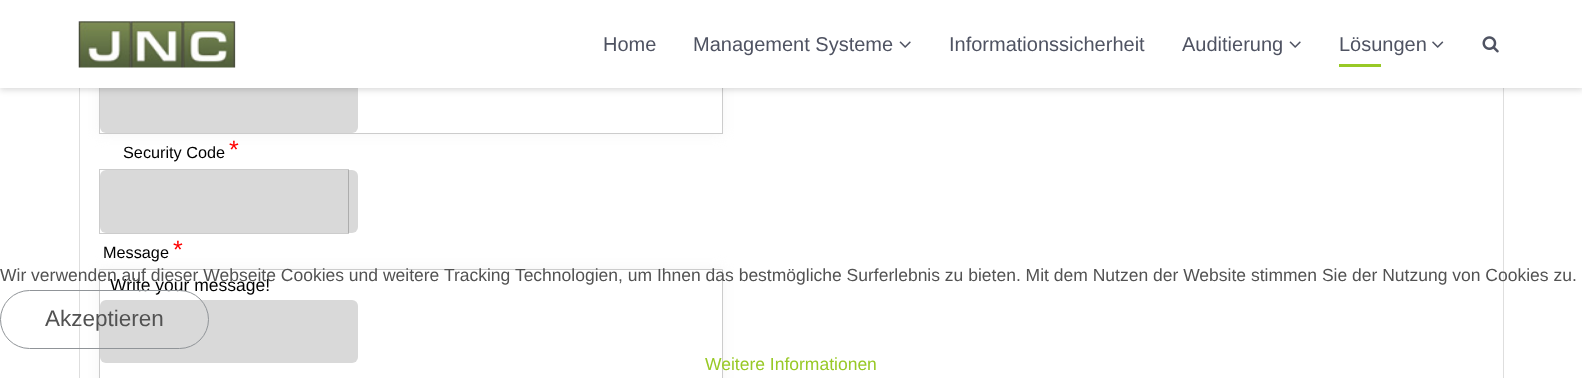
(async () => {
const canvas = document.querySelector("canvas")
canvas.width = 1582
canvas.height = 378
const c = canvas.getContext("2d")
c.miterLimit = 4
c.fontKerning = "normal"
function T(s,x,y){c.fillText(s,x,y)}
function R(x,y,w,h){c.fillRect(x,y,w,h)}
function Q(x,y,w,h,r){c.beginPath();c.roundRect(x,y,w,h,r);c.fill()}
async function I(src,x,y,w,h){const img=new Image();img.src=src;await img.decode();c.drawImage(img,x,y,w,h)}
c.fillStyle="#fff"
R(0,0,1582,378)
c.strokeStyle="#dedede"
c.strokeRect(79.5,-.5,1424,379)
c.fillStyle="#f5f5f5"
c.filter="blur(6px)"
c.beginPath()
c.rect(99,39,624,95)
c.fill()
c.filter="none"
c.fillStyle="#fff"
R(100,88,622,45)
c.strokeStyle="#ccc"
c.strokeRect(99.5,39.5,623,94)
c.fillStyle="#d9d9d9"
Q(100,70,258,63,6)
c.fillStyle="#00000026"
c.filter="blur(3px)"
c.beginPath()
c.rect(0,3,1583,87)
c.fill()
c.filter="none"
c.fillStyle="#fff"
R(0,0,1582,88)
await I("1.png",78,21,158,47)
c.font="20px Liberation Sans"
c.fillStyle="#4f5362"
T("Home",603,51)
T("Management Systeme",693,51)
await I("2.png",899,41,12,7)
T("Informationssicherheit",949,51)
T("Auditierung",1182,51)
await I("2.png",1289,41,12,7)
T("Lösungen",1339,51)
await I("3.png",1432,41,12,7)
c.fillStyle="#98c926"
R(1339,64,42,3)
await I("4.png",1482,36,17,17)
c.font="25px Liberation Sans"
c.fillStyle="#f00"
T("*",229,158)
c.font="16.25px Liberation Sans"
c.fillStyle="#000"
T("Security Code",123,158)
c.strokeRect(99.5,169.5,249,64)
c.fillStyle="#00000026"
Q(100,170,258,63,6)
c.font="25px Liberation Sans"
c.fillStyle="#f00"
T("*",173,258)
c.fillStyle="#f5f5f5"
c.filter="blur(6px)"
c.beginPath()
c.rect(99,269,624,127)
c.fill()
c.filter="none"
c.font="16.25px Liberation Sans"
c.fillStyle="#000"
T("Message",103,258)
c.fillStyle="#fff"
c.beginPath()
c.rect(99.5,269.5,623,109)
c.fill()
c.stroke()
c.font="17.5px Liberation Sans"
c.fillStyle="#000"
T("Write your message!",110,291)
c.fillStyle="#d9d9d9"
Q(100,300,258,63,6)
c.fillStyle="#525252"
T("Wir verwenden auf dieser Webseite Cookies und weitere Tracking Technologien, um Ihnen das bestmögliche Surferlebnis zu bieten. Mit dem Nutzen der Website stimmen Sie der Nutzung von Cookies zu.",0,281)
c.beginPath()
c.roundRect(.5,290.5,208,58,29)
c.strokeStyle="#909498"
c.stroke()
c.font="22.5px Liberation Sans"
T("Akzeptieren",45,326)
c.font="17.5px Liberation Sans"
c.fillStyle="#98c926"
T("Weitere Informationen",705,370)
})()
